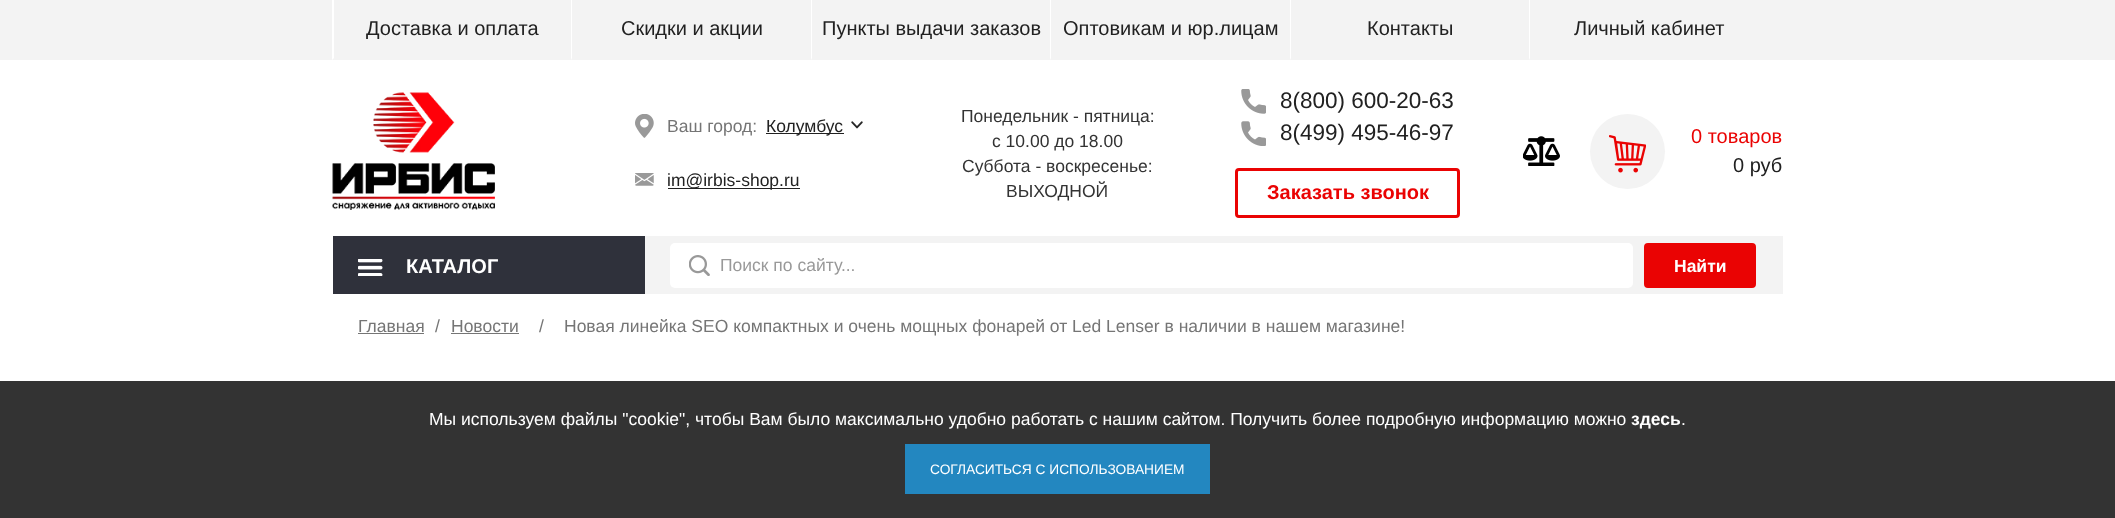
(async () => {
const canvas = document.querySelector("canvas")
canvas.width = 2115
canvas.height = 518
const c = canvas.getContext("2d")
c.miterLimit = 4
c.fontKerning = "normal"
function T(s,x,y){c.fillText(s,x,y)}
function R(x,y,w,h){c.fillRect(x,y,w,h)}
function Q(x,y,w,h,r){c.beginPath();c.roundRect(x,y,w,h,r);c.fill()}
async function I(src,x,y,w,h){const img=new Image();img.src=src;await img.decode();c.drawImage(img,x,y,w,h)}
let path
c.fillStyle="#fff"
R(0,0,2115,518)
c.fillStyle="#f3f3f3"
R(0,0,2115,60)
c.fillStyle="#fff"
path = new Path2D("M332 60v-60h2v58z")
c.fill(path)
c.font="20px Liberation Sans"
c.fillStyle="#212121"
T("Доставка и оплата",366,35)
c.fillStyle="#fff"
path = new Path2D("M571 60v-60h1v58z")
c.fill(path)
c.fillStyle="#212121"
T("Скидки и акции",621,35)
c.fillStyle="#fff"
path = new Path2D("M811 60v-60h1v58z")
c.fill(path)
c.fillStyle="#212121"
T("Пункты выдачи заказов",822,35)
c.fillStyle="#fff"
path = new Path2D("M1050 60v-60h1v58z")
c.fill(path)
c.fillStyle="#212121"
T("Оптовикам и юр.лицам",1063,35)
c.fillStyle="#fff"
path = new Path2D("M1290 60v-60h1v58z")
c.fill(path)
c.fillStyle="#212121"
T("Контакты",1367,35)
c.fillStyle="#fff"
path = new Path2D("M1529 60v-60h1v58z")
c.fill(path)
c.fillStyle="#212121"
T("Личный кабинет",1574,35)
await I("1.png",332,92,163,118)
await I("2.png",635,114,19,24)
c.font="17.5px Liberation Sans"
c.fillStyle="#757575"
T("Ваш город:",667,132)
c.fillStyle="#212121"
R(766,133,78,1)
T("Колумбус",766,132)
await I("3.png",851,121,12,8)
await I("4.png",635,173,19,13)
R(668,188,132,1)
T("im@irbis-shop.ru",667,186)
c.fillStyle="#333"
T("Понедельник - пятница:",961,122)
T("с 10.00 до 18.00",992,147)
T("Суббота - воскресенье:",962,172)
T("ВЫХОДНОЙ",1006,197)
await I("5.png",1241,89,25,25)
c.font="22.5px Liberation Sans"
c.fillStyle="#212121"
T("8(800) 600-20-63",1280,108)
await I("6.png",1241,121,25,25)
T("8(499) 495-46-97",1280,140)
c.beginPath()
c.roundRect(1236.5,169.5,222,47,2.5)
c.strokeStyle="#ea0303"
c.lineWidth=3
c.stroke()
c.font="bold 20px Liberation Sans"
c.fillStyle="#ea0303"
T("Заказать звонок",1267,199)
await I("7.png",1523,136,37,30)
c.fillStyle="#f3f3f3"
c.beginPath()
c.arc(1627.5,151.5,37.5,0,7)
c.fill()
await I("8.png",1609,135,37,38)
c.font="20px Liberation Sans"
c.fillStyle="#ea0303"
T("0 товаров",1691,143)
c.fillStyle="#212121"
T("0 руб",1733,172)
c.fillStyle="#2f313b"
R(333,236,312,58)
await I("9.png",358,259,25,17)
c.font="bold 20px Liberation Sans"
c.fillStyle="#fff"
T("КАТАЛОГ",406,273)
c.fillStyle="#f3f3f3"
R(645,236,1138,58)
c.fillStyle="#fff"
Q(670,243,963,45,5)
await I("10.png",689,255,21,21)
c.font="17.5px Liberation Sans"
c.fillStyle="#999"
T("Поиск по сайту...",720,271)
c.fillStyle="#ea0303"
c.beginPath()
c.roundRect(1645.5,244.5,109,42,2.5)
c.fill()
c.stroke()
c.font="bold 17.5px Liberation Sans"
c.fillStyle="#fff"
T("Найти",1674,272)
c.font="17.5px Liberation Sans"
c.fillStyle="#757575"
T("Главная",358,332)
R(358,333,66,1)
T("/",435,332)
T("Новости",451,332)
R(451,333,68,1)
T("/",539,332)
T("Новая линейка SEO компактных и очень мощных фонарей от Led Lenser в наличии в нашем магазине!",564,332)
c.fillStyle="#333"
R(0,381,2115,137)
c.fillStyle="#fff"
T("Мы используем файлы \"cookie\", чтобы Вам было максимально удобно работать с нашим сайтом. Получить более подробную информацию можно",429,425)
c.font="bold 17.5px Liberation Sans"
T("здесь",1631,425)
c.font="17.5px Liberation Sans"
T(".",1681,425)
c.fillStyle="#2387c0"
R(905,444,305,50)
c.font="13.75px Liberation Sans"
c.fillStyle="#fff"
T("СОГЛАСИТЬСЯ С ИСПОЛЬЗОВАНИЕМ",930,474)
})()
